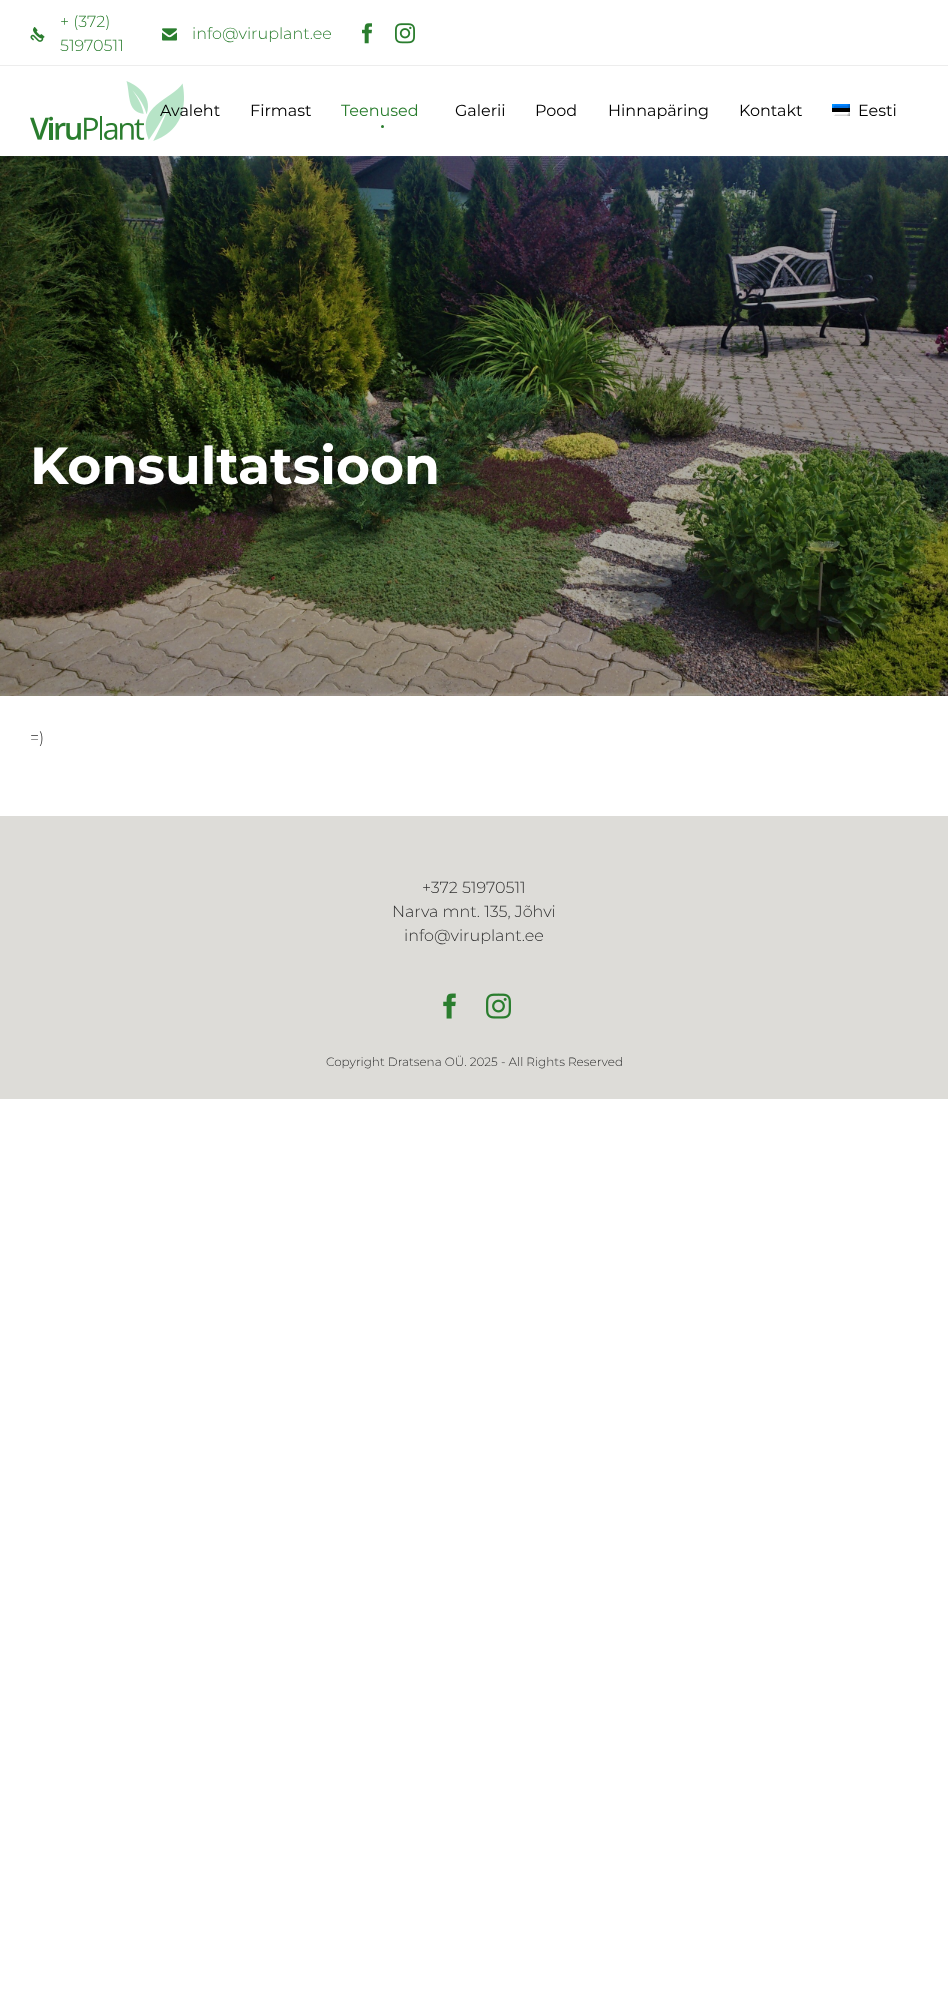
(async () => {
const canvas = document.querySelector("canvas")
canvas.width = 948
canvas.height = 1996
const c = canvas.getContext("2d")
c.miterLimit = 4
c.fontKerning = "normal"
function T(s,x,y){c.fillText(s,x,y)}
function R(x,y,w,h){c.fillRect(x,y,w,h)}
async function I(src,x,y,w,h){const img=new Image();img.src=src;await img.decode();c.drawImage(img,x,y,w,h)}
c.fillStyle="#fff"
R(0,0,948,1996)
c.fillStyle="#ededed"
R(0,65,948,1)
await I("1.png",30,27,15,15)
c.font="300 16px Montserrat"
c.fillStyle="#2a7d2e"
T("+ (372)",60,27)
T("51970511",60,51)
await I("2.png",162,28,15,13)
T("info@viruplant.ee",192,39)
await I("3.png",362,23,10,21)
await I("4.png",395,23,20,21)
await I("5.png",30,81,154,60)
c.font="16px Montserrat"
c.fillStyle="#000"
T("Avaleht",160,116)
T("Firmast",250,116)
c.fillStyle="#2a7d2e"
T("Teenused",341,116)
c.beginPath()
c.arc(382.5,126.5,1.5,0,7)
c.fill()
c.fillStyle="#000"
T("Galerii",455,116)
T("Pood",535,116)
T("Hinnapäring",608,116)
T("Kontakt",739,116)
await I("6.png",832,104,18,12)
T("Eesti",858,116)
await I("7.png",0,156,948,540)
c.font="bold 52px Montserrat"
c.fillStyle="#fff"
T("Konsultatsioon",30,484)
c.font="300 16px Montserrat"
c.fillStyle="#2f2f2f"
T("=)",30,743)
c.fillStyle="#dddcd8"
R(0,816,948,283)
c.fillStyle="#2f2f2f"
T("+372 51970511",422,893)
T("Narva mnt. 135, Jõhvi",392,917)
T("info@viruplant.ee",404,941)
await I("8.png",443,993,13,26)
await I("9.png",486,993,25,26)
c.font="300 12px Montserrat"
T("Copyright Dratsena OÜ. 2025 - All Rights Reserved",326,1066)
})()
